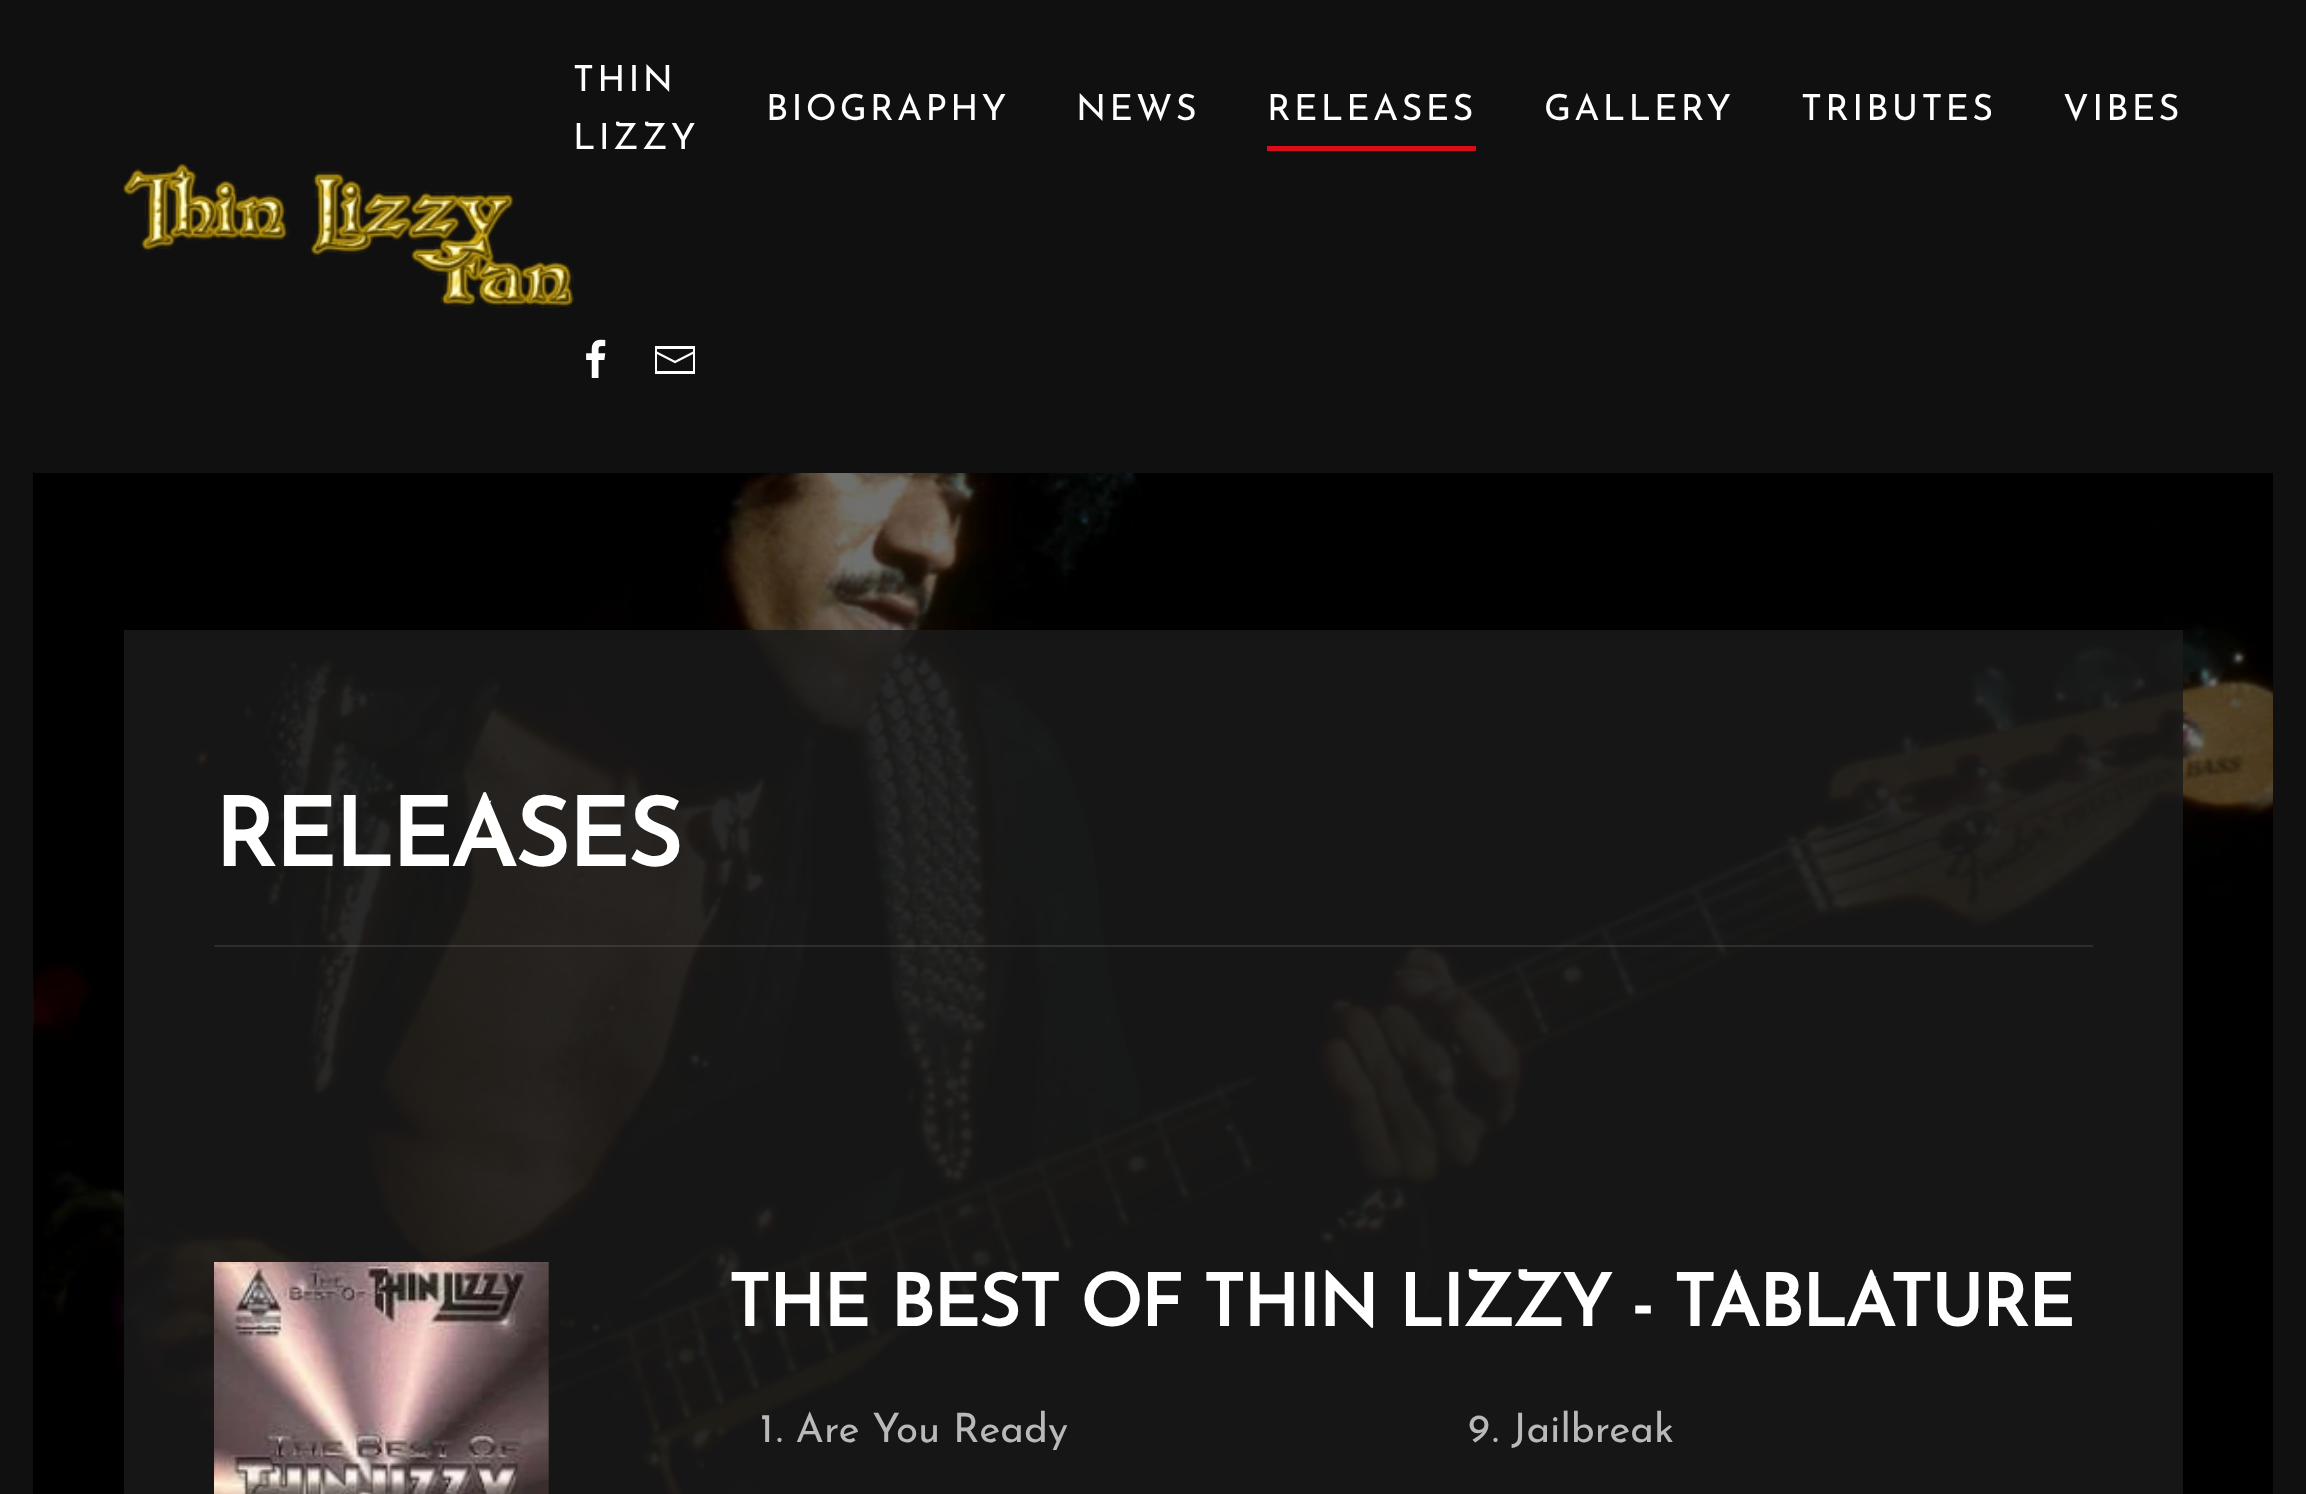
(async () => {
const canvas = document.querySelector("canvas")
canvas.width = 2306
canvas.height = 1494
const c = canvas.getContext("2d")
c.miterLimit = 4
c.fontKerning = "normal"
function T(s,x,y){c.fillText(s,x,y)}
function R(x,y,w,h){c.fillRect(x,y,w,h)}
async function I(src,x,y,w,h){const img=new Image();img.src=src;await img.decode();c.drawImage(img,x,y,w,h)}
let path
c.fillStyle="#101010"
R(0,0,2306,1494)
await I("3.png",33,472,2240,1022)
R(34,472,2239,1)
c.letterSpacing="3.25px"
c.font="100 36px Josefin Sans"
c.fillStyle="#fff"
T("THIN",573,91)
T("LIZZY",573,149)
T("BIOGRAPHY",766,120)
T("NEWS",1076,120)
T("RELEASES",1267,120)
c.fillStyle="#d90d18"
R(1267,146,209,5)
c.fillStyle="#fff"
T("GALLERY",1544,120)
T("TRIBUTES",1801,120)
T("VIBES",2063,120)
await I("1.png",586,339,20,39)
path = new Path2D("M655.5 352l19.5 10l19.5-10")
c.strokeStyle="#fff"
c.lineWidth=2.2
c.stroke(path)
path = new Path2D("M655 346v28h40v-28zm38 25h-36v-22h36z")
c.fill(path)
await I("2.png",123,164,451,144)
c.fillStyle="#1a1a1ad6"
R(124,630,2059,475)
c.letterSpacing="-2px"
c.font="bold 94.5px Josefin Sans"
c.fillStyle="#fff"
T("RELEASES",214,866)
c.fillStyle="#ffffff1a"
R(214,945,1879,2)
c.fillStyle="#1a1a1ad6"
R(124,1105,515,389)
await I("4.png",214,1262,335,232)
R(639,1105,1544,389)
c.letterSpacing="-1.45px"
c.font="bold 72px Josefin Sans"
c.fillStyle="#fff"
T("THE BEST OF THIN LIZZY - TABLATURE",728,1326)
c.letterSpacing="0px"
c.font="100 40.5px Josefin Sans"
c.fillStyle="#b9b9b9"
T("1",760,1442)
T(". Are You Ready",776,1442)
T("9",1468,1442)
T(". Jailbreak",1492,1442)
})()
